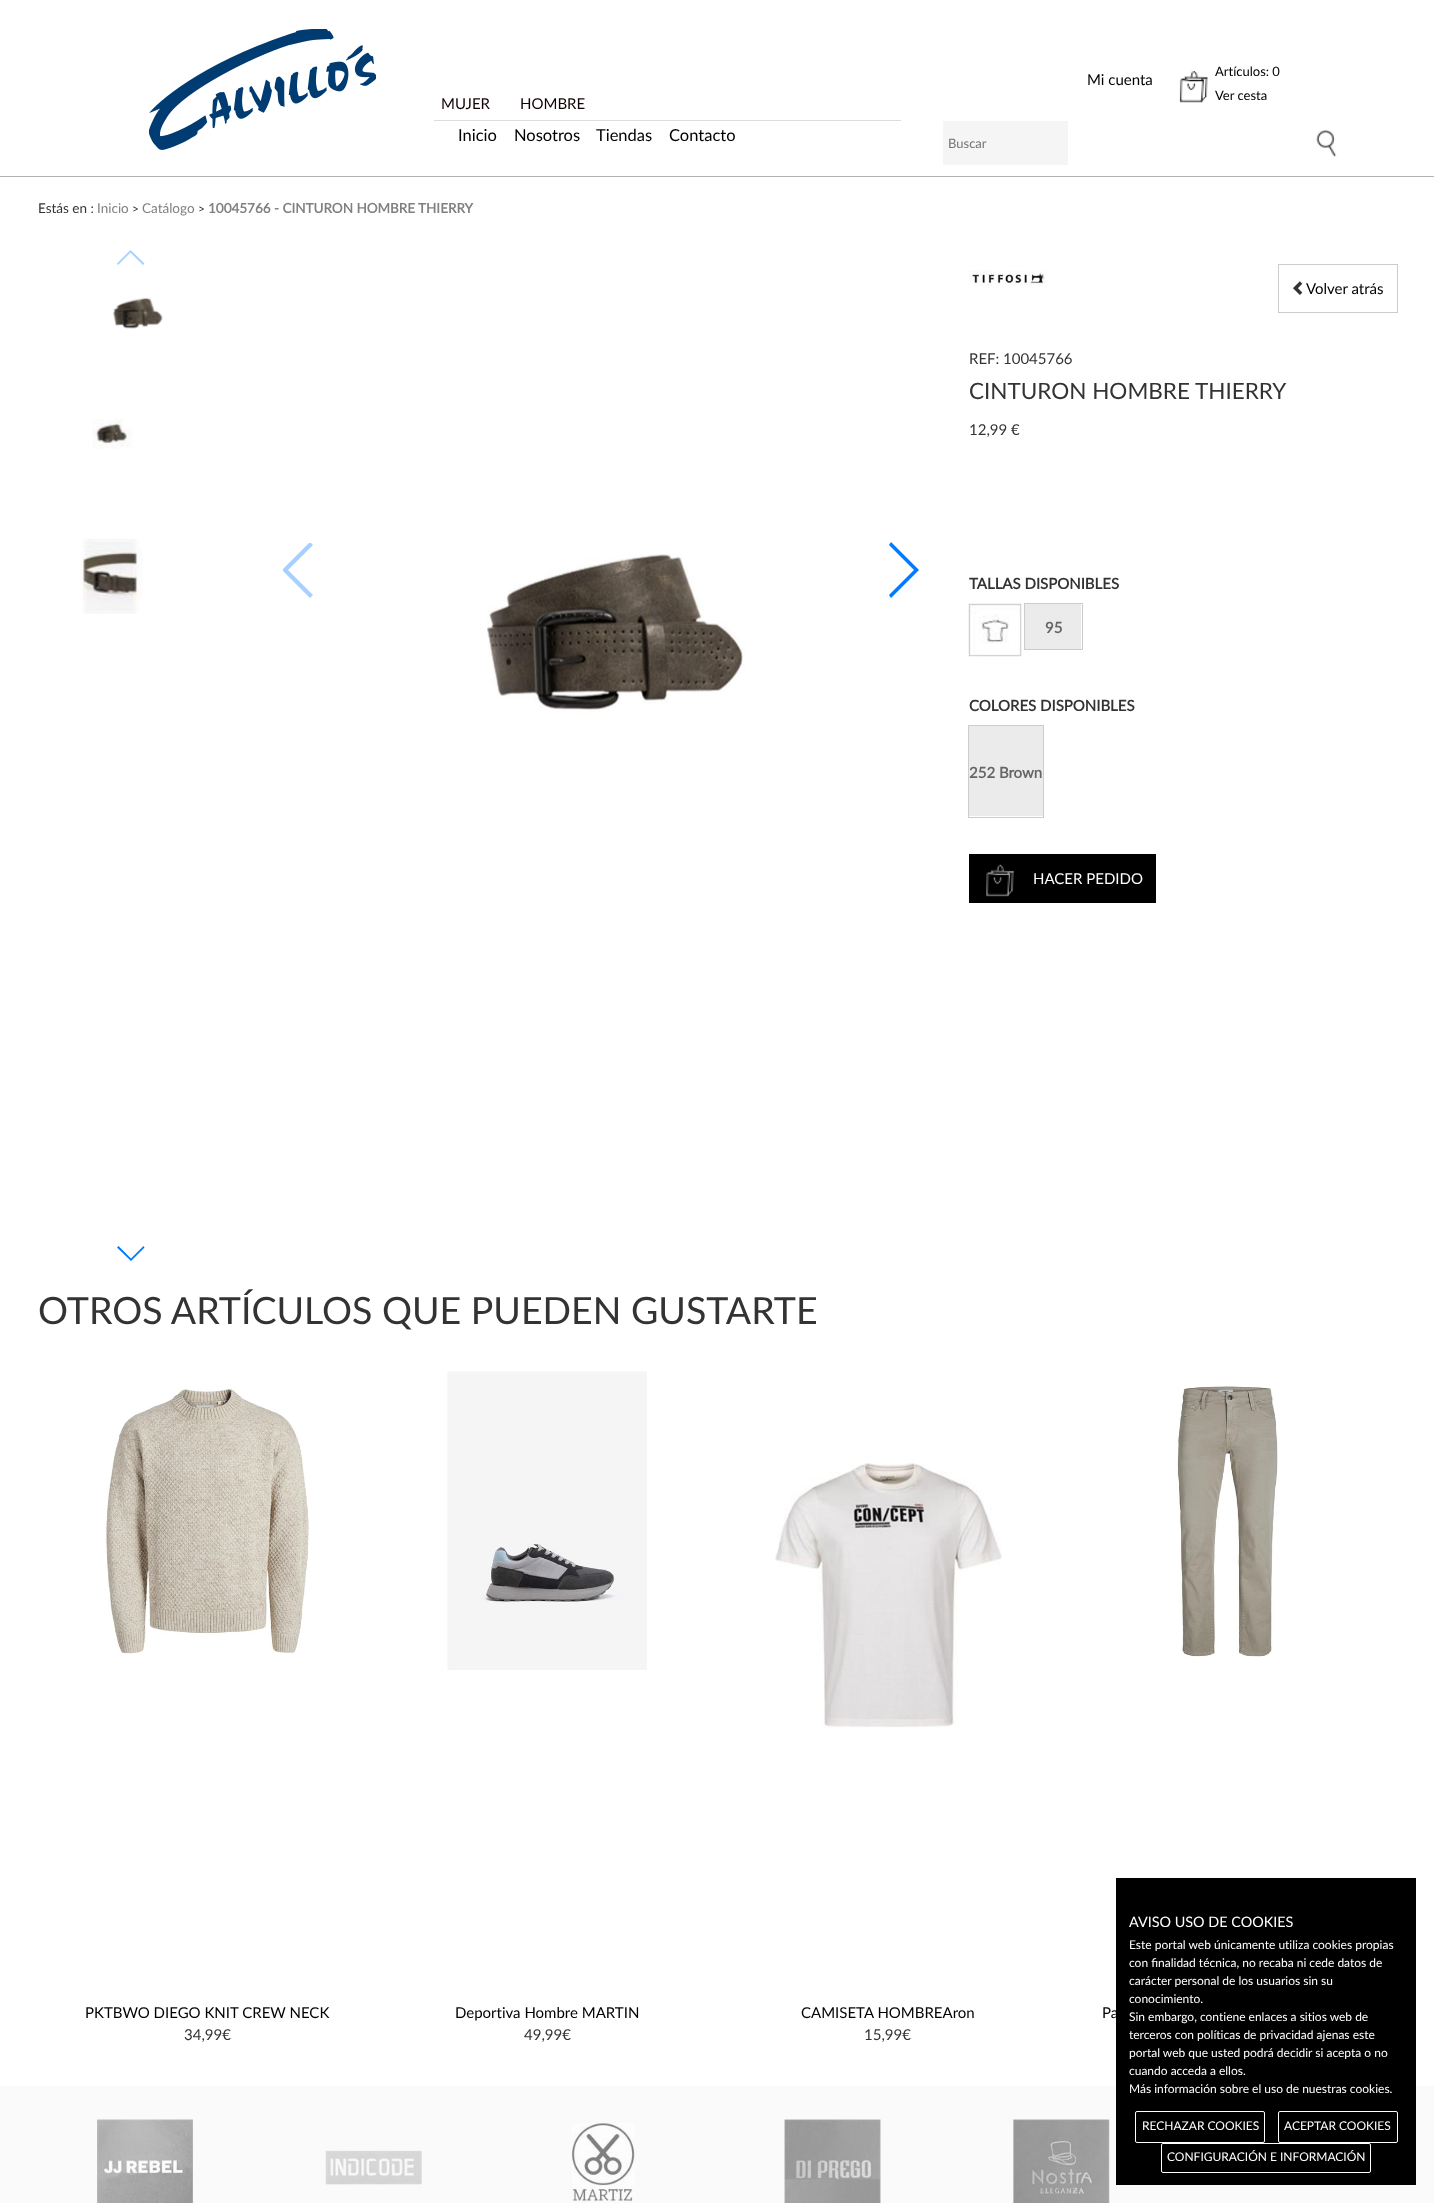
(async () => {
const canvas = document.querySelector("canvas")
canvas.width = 1434
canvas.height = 2203
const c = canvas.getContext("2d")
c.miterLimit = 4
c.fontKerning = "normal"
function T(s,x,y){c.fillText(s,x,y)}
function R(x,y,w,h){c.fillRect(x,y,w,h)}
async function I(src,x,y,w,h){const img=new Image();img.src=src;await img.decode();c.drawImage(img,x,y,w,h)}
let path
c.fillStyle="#fff"
R(0,0,1434,2203)
c.fillStyle="#b3b3b3"
R(0,176,1434,1)
await I("1.png",149,29,227,121)
c.font="15px Lato"
c.fillStyle="#000"
T("Mi cuenta",1087,85)
await I("2.png",1179,71,29,32)
c.font="13px Lato"
T("Artículos: 0",1215,76)
T("Ver cesta",1215,100)
c.fillStyle="#ddd"
R(434,120,467,1)
c.font="15px Lato"
c.fillStyle="#120203"
T("MUJER",441,109)
T("HOMBRE",520,109)
c.font="16.5px Lato"
c.fillStyle="#000"
T("Inicio",458,141)
T("Nosotros",514,141)
T("Tiendas",596,141)
T("Contacto",669,141)
c.fillStyle="#f5f5f5"
R(943,121,125,44)
c.font="13px Lato"
c.fillStyle="#757575"
T("Buscar",948,148)
await I("3.png",1316,130,21,27)
c.font="13.5px Lato"
c.fillStyle="#333"
T("Estás en :",38,213)
c.fillStyle="#808080"
T("Inicio",97,213)
c.font="12px Lato"
c.fillStyle="#333"
T(">",132,213)
c.font="13.5px Lato"
c.fillStyle="#808080"
T("Catálogo",142,213)
c.font="12px Lato"
c.fillStyle="#333"
T(">",198,213)
c.font="bold 13.5px Lato"
c.fillStyle="#808080"
T("10045766 - CINTURON HOMBRE THIERRY",208,213)
c.fillStyle="#a6d0ff"
path = new Path2D("M130.5 250l14 13.5l-1.5 1.5l-12.5-12.5l-12.5 12.5l-1-1.5z")
c.fill(path)
await I("4.png",113,297,50,32)
await I("5.png",92,419,41,30)
await I("6.png",80,539,63,75)
c.fillStyle="#007aff"
path = new Path2D("M131 1261l-14-13.5l1.5-1.5l12.5 12.5l12.5-12.5l1 1.5z")
c.fill(path)
await I("7.png",969,270,78,16)
c.strokeStyle="#ccc"
c.strokeRect(1278.5,264.5,119,48)
await I("8.png",1293,281,10,14)
c.font="15px Lato"
c.fillStyle="#000"
T("Volver atrás",1306,294)
c.fillStyle="#333"
T("REF: 10045766",969,364)
c.font="22.5px Lato"
T("CINTURON HOMBRE THIERRY",969,399)
c.font="15px Lato"
T("12,99 €",969,435)
c.save()
c.beginPath()
c.rect(283,543,33,55)
c.clip()
c.fillStyle="#a6d0ff"
path = new Path2D("M282 570l28-28l3 3l-25 25l25 25l-3 3z")
c.fill(path)
c.restore()
await I("9.png",487,554,258,159)
c.fillStyle="#007aff"
path = new Path2D("M919 570l-28 28l-2-3l25-25l-25-25l2-3z")
c.fill(path)
c.font="bold 15px Lato"
c.fillStyle="#333"
T("TALLAS DISPONIBLES",969,589)
await I("10.png",968,603,54,54)
c.fillStyle="#ebebeb"
R(1025,604,56,45)
c.strokeRect(1024.5,603.5,58,46)
c.fillStyle="#666"
T("95",1045,633)
c.fillStyle="#333"
T("COLORES DISPONIBLES",969,711)
c.fillStyle="#ebebeb"
R(969,726,74,90)
c.strokeRect(968.5,725.5,75,92)
c.fillStyle="#666"
T("252 Brown",969,778)
c.fillStyle="#000"
R(969,854,187,49)
await I("11.png",986,864,28,33)
c.font="15px Lato"
c.fillStyle="#fff"
T("HACER PEDIDO",1033,884)
c.font="37.5px Lato"
c.fillStyle="#333"
T("OTROS ARTÍCULOS QUE PUEDEN GUSTARTE",38,1324)
await I("12.png",105,1388,204,266)
c.font="15px Lato"
c.fillStyle="#000"
T("PKTBWO DIEGO KNIT CREW NECK",85,2018)
c.fillStyle="#333"
T("34,99€",184,2040)
await I("13.png",447,1371,200,299)
c.fillStyle="#000"
T("Deportiva Hombre MARTIN",455,2018)
c.fillStyle="#333"
T("49,99€",524,2040)
await I("14.png",775,1463,227,266)
c.fillStyle="#000"
T("CAMISETA HOMBREAron",801,2018)
c.fillStyle="#333"
T("15,99€",864,2040)
await I("15.png",1176,1386,102,271)
c.fillStyle="#000"
T("Pa",1102,2018)
c.fillStyle="#fafafa"
R(0,2086,1434,117)
await I("16.png",97,2119,96,84)
await I("17.png",325,2150,97,35)
await I("18.png",572,2123,63,79)
await I("19.png",784,2119,97,84)
await I("20.png",1013,2119,97,84)
c.fillStyle="#000"
R(1116,1878,300,307)
c.font="14.4px Lato"
c.fillStyle="#fff"
T("AVISO USO DE COOKIES",1129,1927)
c.font="12px Lato"
T("Este portal web únicamente utiliza cookies propias",1129,1949)
T("con finalidad técnica, no recaba ni cede datos de",1129,1967)
T("carácter personal de los usuarios sin su",1129,1985)
T("conocimiento.",1129,2003)
T("Sin embargo, contiene enlaces a sitios web de",1129,2021)
T("terceros con políticas de privacidad ajenas este",1129,2039)
T("portal web que usted podrá decidir si acepta o no",1129,2057)
T("cuando acceda a ellos.",1129,2075)
T("Más información sobre el uso de nuestras cookies.",1129,2093)
c.beginPath()
c.roundRect(1135.5,2111.5,129,31,1.5)
c.strokeStyle="#fff"
c.stroke()
T("RECHAZAR COOKIES",1142,2130)
c.beginPath()
c.roundRect(1278.5,2111.5,119,31,1.5)
c.stroke()
T("ACEPTAR COOKIES",1284,2130)
c.beginPath()
c.roundRect(1161.5,2143.5,209,29,1.5)
c.stroke()
T("CONFIGURACIÓN E INFORMACIÓN",1167,2161)
})()
